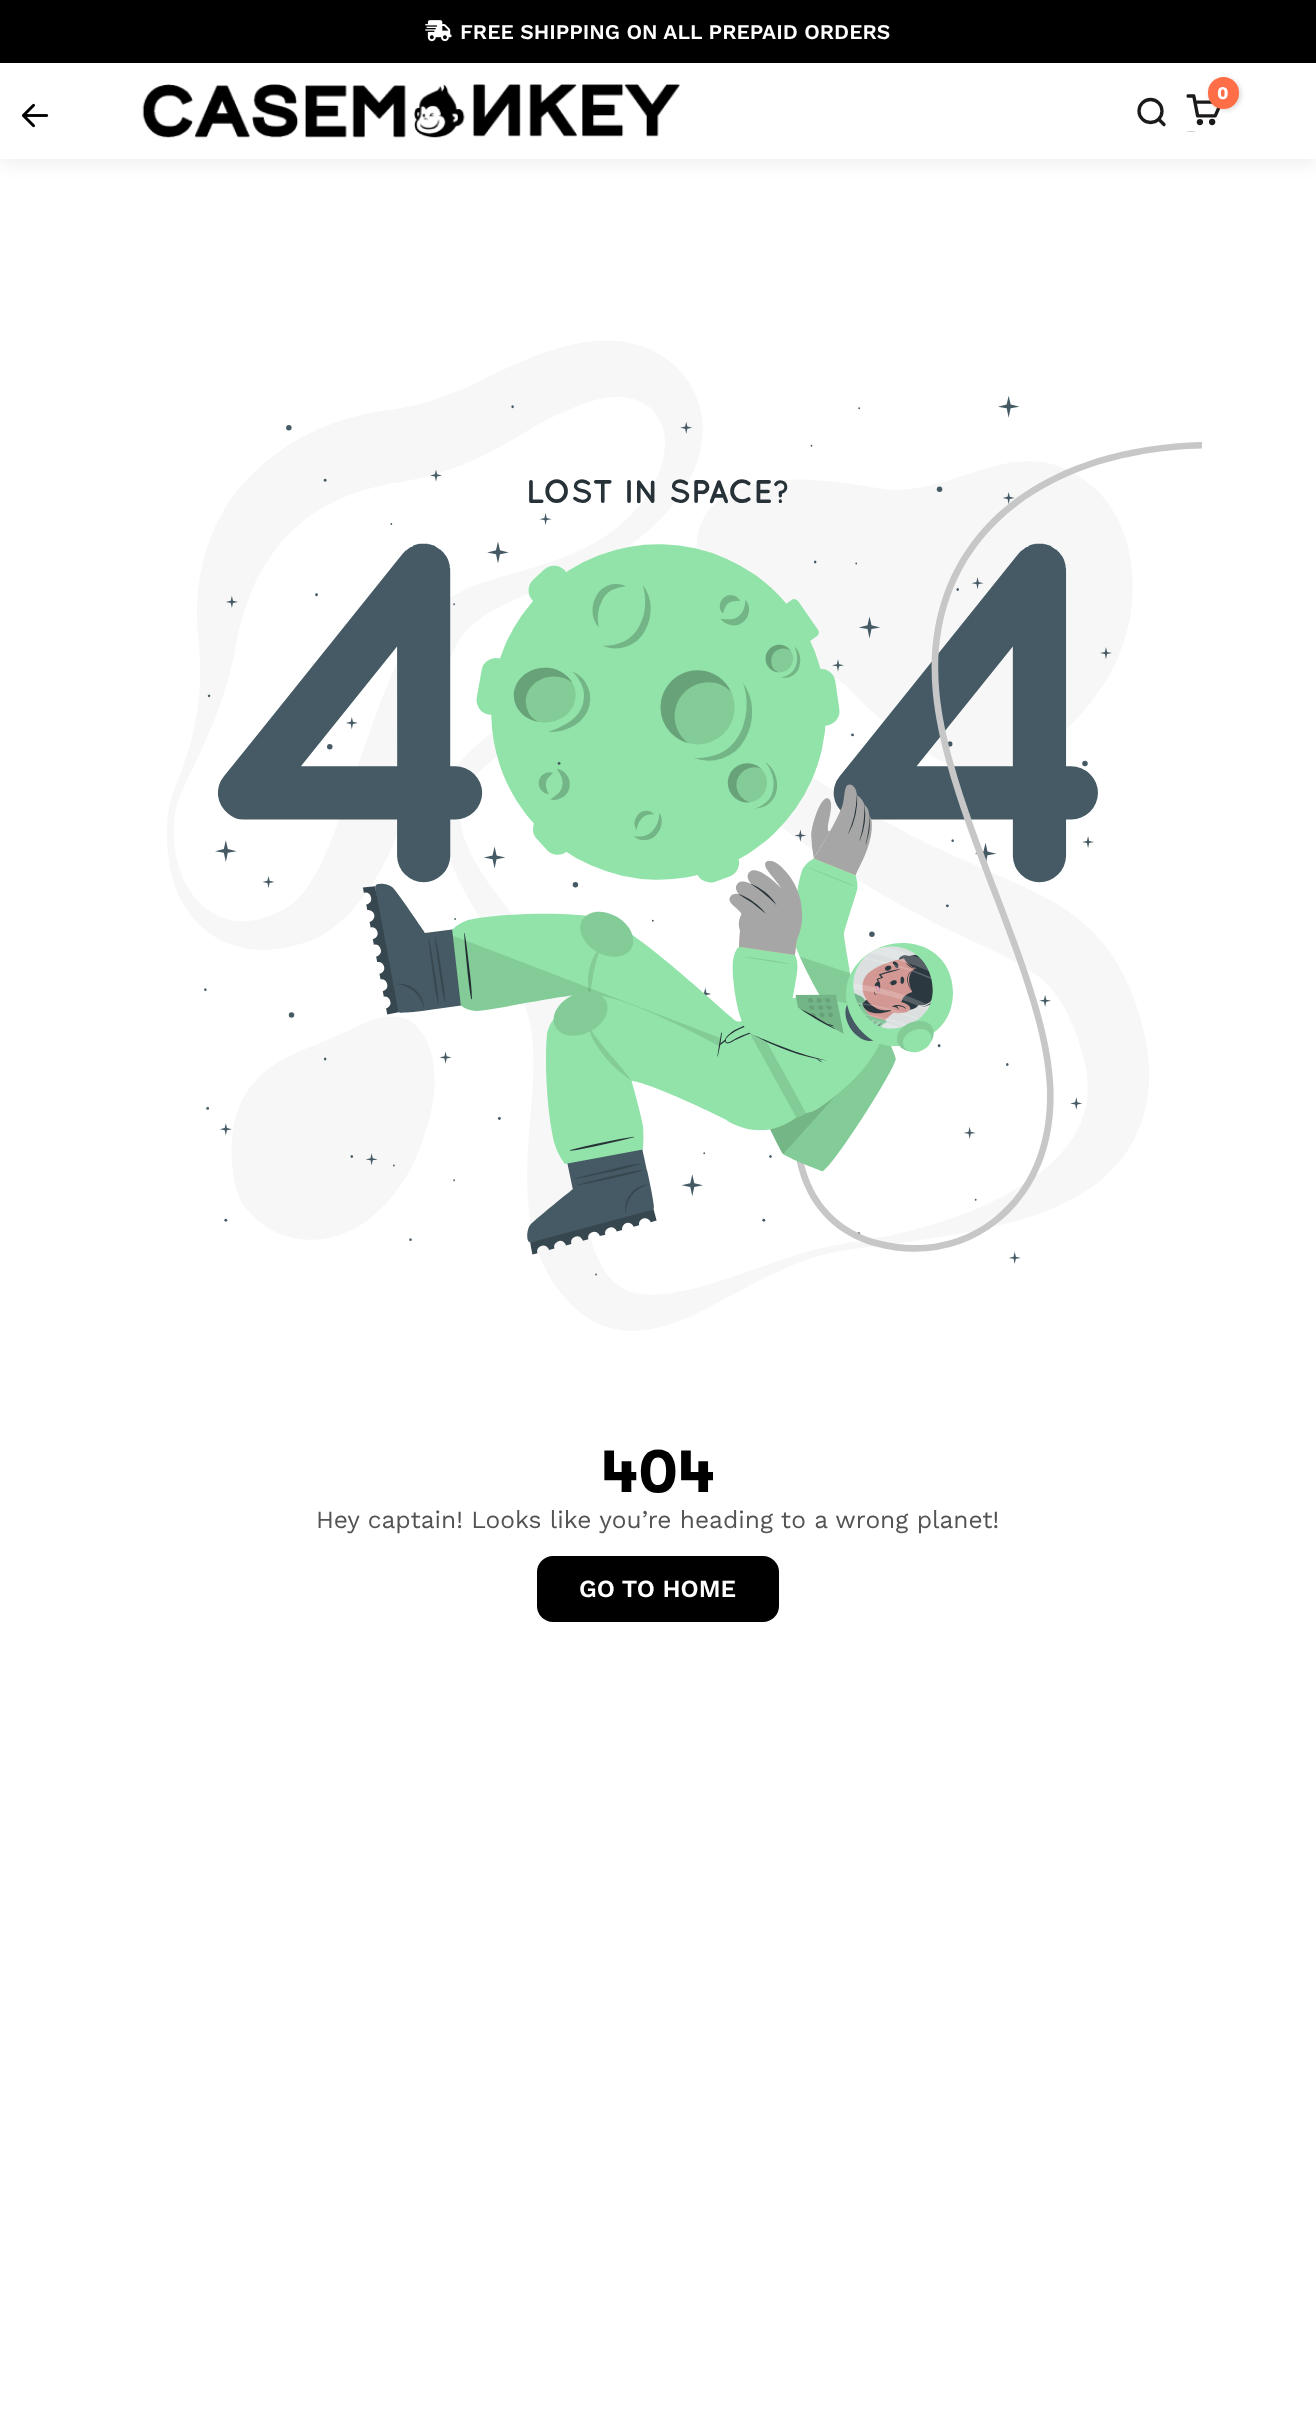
(async () => {
const canvas = document.querySelector("canvas")
canvas.width = 1316
canvas.height = 2412
const c = canvas.getContext("2d")
c.miterLimit = 4
c.fontKerning = "normal"
function T(s,x,y){c.fillText(s,x,y)}
function R(x,y,w,h){c.fillRect(x,y,w,h)}
function Q(x,y,w,h,r){c.beginPath();c.roundRect(x,y,w,h,r);c.fill()}
async function I(src,x,y,w,h){const img=new Image();img.src=src;await img.decode();c.drawImage(img,x,y,w,h)}
let path
c.fillStyle="#fff"
R(0,0,1316,2412)
c.fillStyle="#000"
R(0,0,1316,63)
await I("1.png",425,20,27,22)
c.font="600 21px Work Sans"
c.fillStyle="#fff"
T("FREE SHIPPING ON ALL PREPAID ORDERS",460,39)
c.save()
path = new Path2D("M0 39h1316v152h-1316zm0 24h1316v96h-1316z")
c.clip(path,"evenodd")
c.fillStyle="#00000012"
c.filter="blur(9px)"
c.beginPath()
c.rect(0,67,1316,96)
c.fill()
c.filter="none"
c.restore()
await I("2.png",142,84,538,54)
await I("3.png",1186,94,35,38)
c.fillStyle="#00000026"
c.filter="blur(2.5px)"
c.beginPath()
c.roundRect(1209,79,32,31,15.5)
c.fill()
c.filter="none"
c.fillStyle="#ff6e46"
Q(1208,77,31,32,15.5)
c.font="bold 18px Work Sans"
c.fillStyle="#fff"
T("0",1217,99)
await I("4.png",21,103,28,25)
c.beginPath()
c.arc(1150.5,111,11.5,0,7)
c.strokeStyle="#1a1a1a"
c.lineWidth=3.3
c.stroke()
path = new Path2D("M1159 119.5l5 5")
c.lineCap="round"
c.lineJoin="round"
c.stroke(path)
await I("5.png",167,340,1035,991)
c.font="bold 61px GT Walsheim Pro"
c.fillStyle="#000"
T("404",601,1492)
c.font="24.5px Work Sans"
c.fillStyle="#535353"
T("Hey captain! Looks like you’re heading to a wrong planet!",316,1528)
c.fillStyle="#000"
Q(537,1556,242,66,16)
c.font="600 24.5px Work Sans"
c.fillStyle="#fff"
T("GO TO HOME",579,1597)
})()
